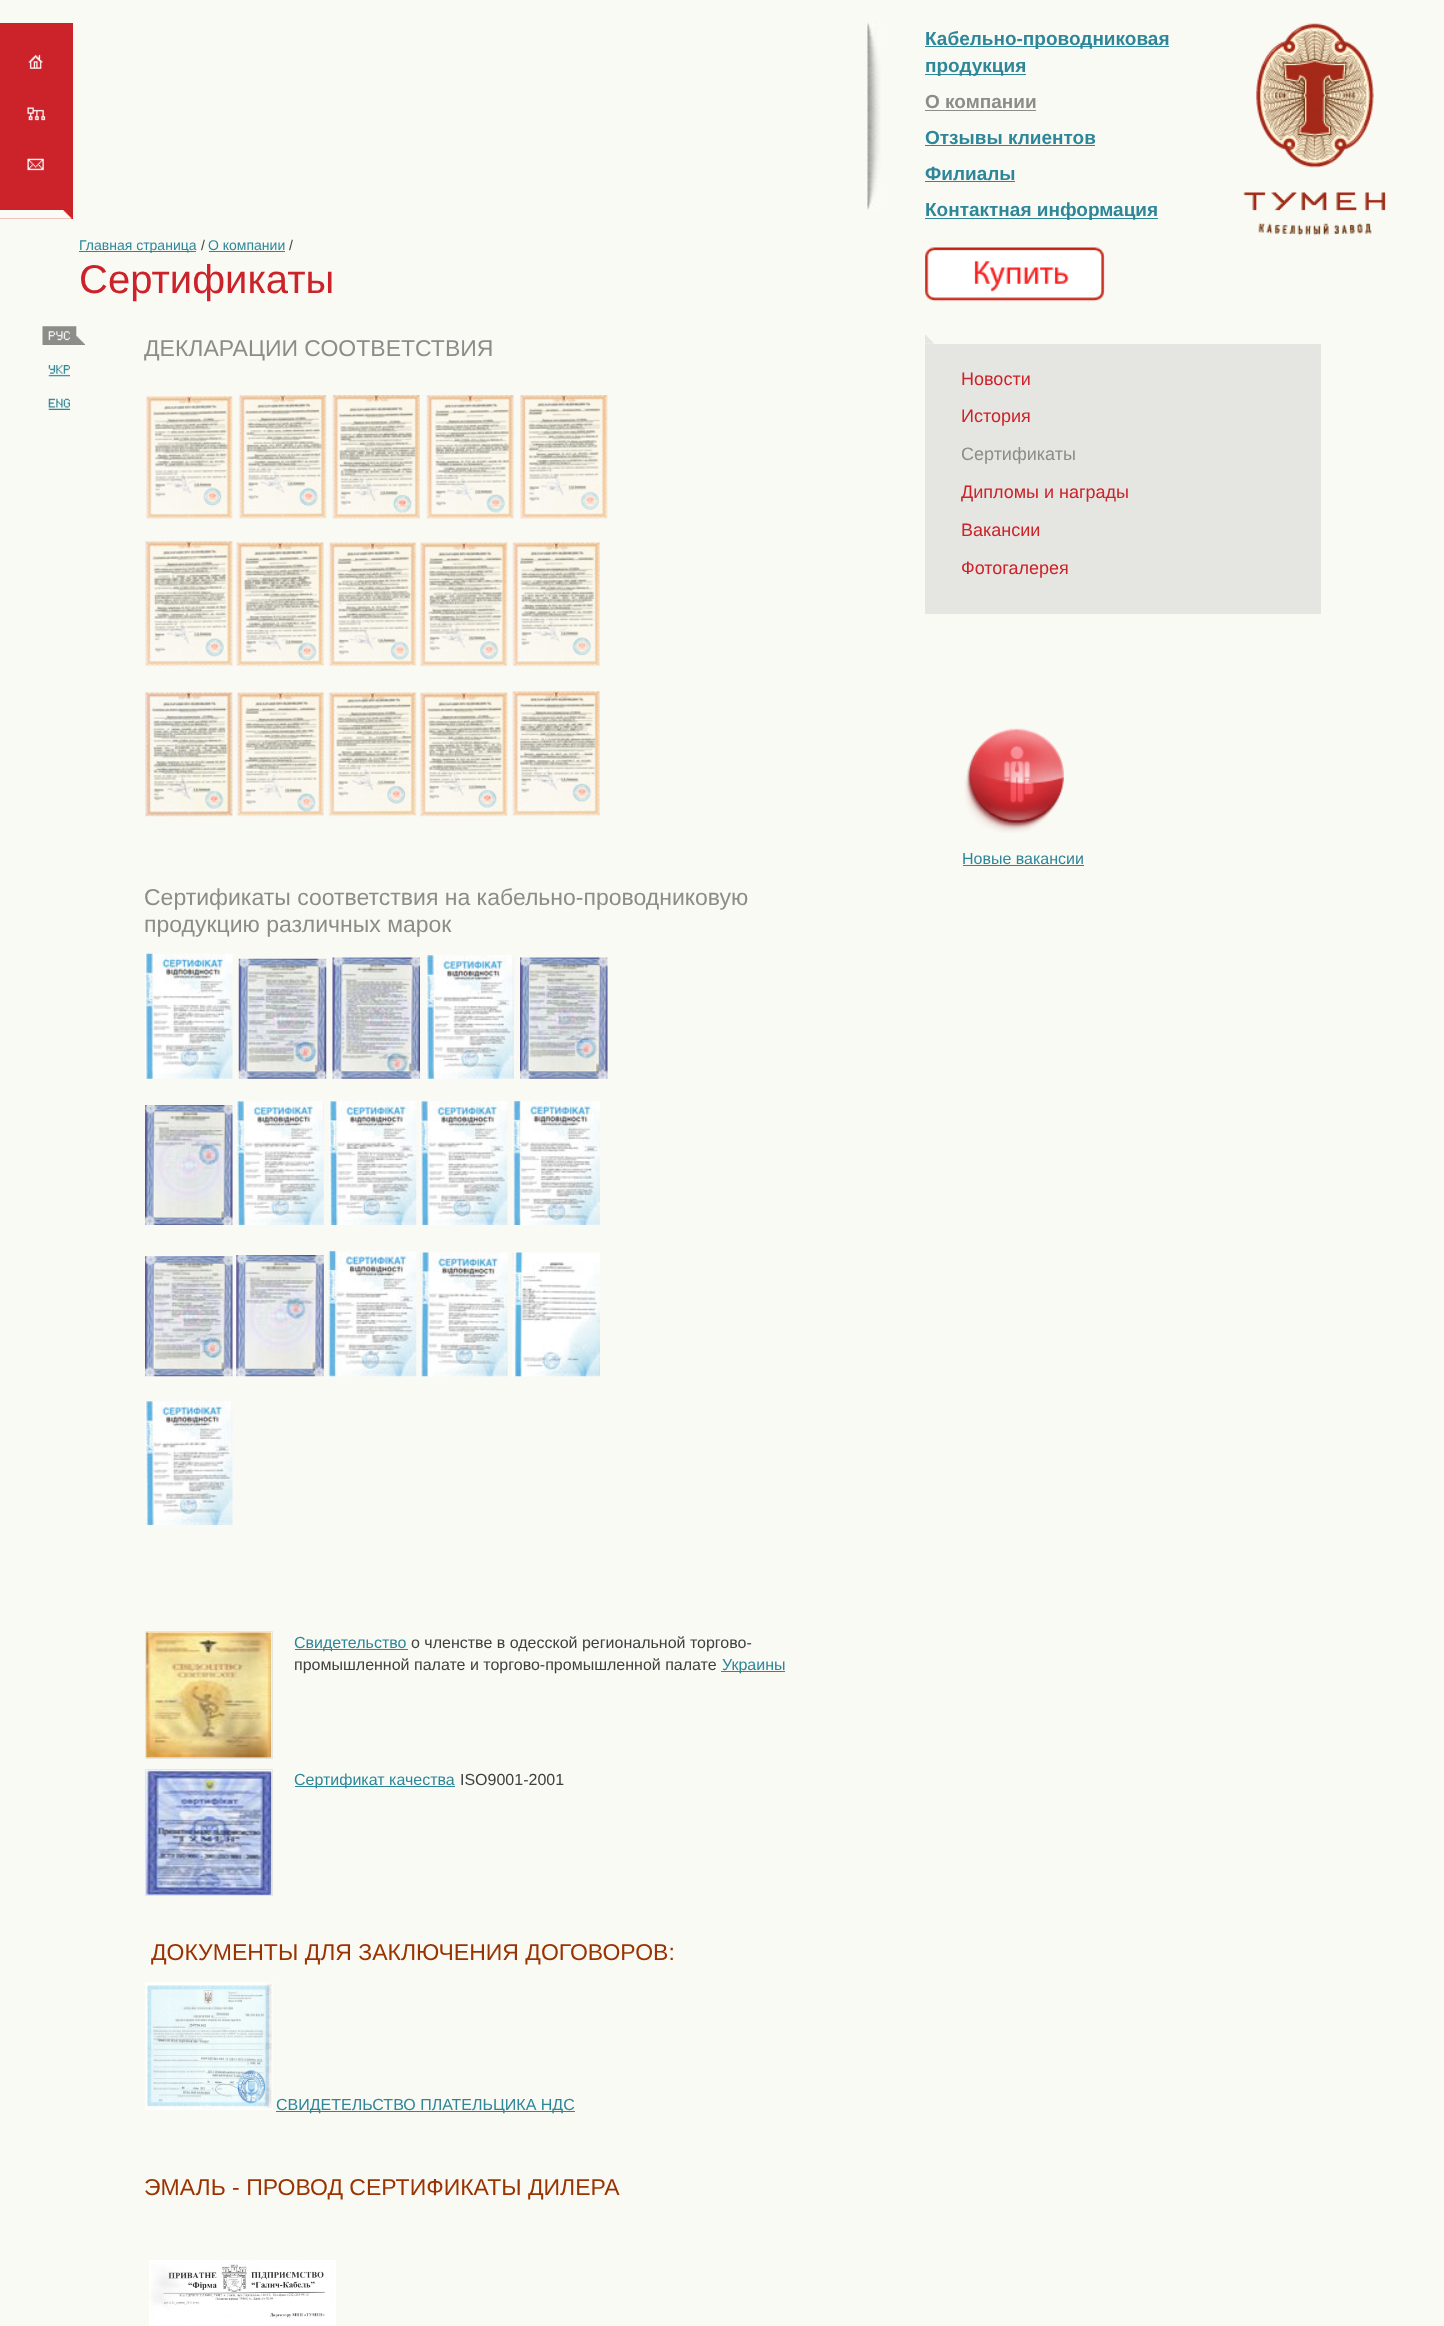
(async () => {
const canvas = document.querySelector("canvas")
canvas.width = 1444
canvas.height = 2326
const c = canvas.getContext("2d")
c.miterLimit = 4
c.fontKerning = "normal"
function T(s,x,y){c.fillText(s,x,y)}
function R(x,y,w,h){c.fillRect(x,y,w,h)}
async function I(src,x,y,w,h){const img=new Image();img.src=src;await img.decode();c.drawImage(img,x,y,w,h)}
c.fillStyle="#fafaf5"
R(0,0,1444,2326)
c.fillStyle="#cc2229"
R(0,23,73,196)
await I("1.png",0,210,72,9)
await I("2.png",28,54,15,15)
await I("3.png",27,107,19,14)
await I("4.png",27,158,17,13)
await I("5.png",867,22,14,188)
await I("6.png",1243,23,143,213)
c.font="40px Liberation Sans"
T("Сертификаты",79,293)
await I("7.png",42,326,43,19)
await I("8.png",48,331,22,10)
await I("9.png",48,365,22,12)
await I("10.png",48,398,22,12)
c.font="23px Liberation Sans"
c.fillStyle="#8c8c89"
T("ДЕКЛАРАЦИИ СООТВЕТСТВИЯ",144,356)
await I("11.png",145,396,88,123)
await I("12.png",238,395,89,124)
await I("13.png",332,395,88,124)
await I("14.png",426,395,88,124)
await I("15.png",520,395,88,124)
await I("16.png",145,541,88,126)
await I("17.png",236,542,88,125)
await I("18.png",328,542,89,125)
await I("19.png",420,542,88,125)
await I("20.png",512,542,88,125)
await I("21.png",145,692,88,125)
await I("22.png",236,692,88,125)
await I("23.png",328,692,89,125)
await I("24.png",420,692,88,125)
await I("25.png",512,691,88,126)
T("Сертификаты соответствия на кабельно-проводниковую",144,905)
T("продукцию различных марок",144,932)
await I("26.png",145,953,88,126)
await I("27.png",238,958,89,121)
await I("28.png",332,957,88,122)
await I("29.png",426,955,88,124)
await I("30.png",520,957,88,122)
await I("31.png",145,1105,88,120)
await I("32.png",236,1101,88,124)
await I("33.png",329,1101,88,124)
await I("34.png",420,1101,88,124)
await I("35.png",512,1101,88,124)
await I("36.png",145,1256,88,121)
await I("37.png",236,1255,88,122)
await I("38.png",328,1251,89,126)
await I("39.png",420,1252,88,125)
await I("40.png",512,1252,88,125)
await I("41.png",145,1401,88,124)
c.fillStyle="#fff"
c.beginPath()
c.rect(145.5,1631.5,127,127)
c.fill()
c.strokeStyle="#e5e5e1"
c.stroke()
await I("42.png",146,1632,126,126)
c.fillStyle="#2d8799"
R(295,1649,113,1)
c.font="16px Liberation Sans"
T("Свидетельство",294,1648)
c.fillStyle="#40403f"
T("о членстве в одесской региональной торгово-",411,1648)
T("промышленной палате и торгово-промышленной палате",294,1670)
c.fillStyle="#2d8799"
R(721,1671,64,1)
T("Украины",722,1670)
c.fillStyle="#fff"
c.beginPath()
c.rect(145.5,1769.5,127,126)
c.fill()
c.stroke()
await I("43.png",146,1770,126,125)
c.fillStyle="#2d8799"
R(295,1786,160,1)
T("Сертификат качества",294,1785)
c.fillStyle="#40403f"
T("ISO9001-2001",460,1785)
c.font="23px Liberation Sans"
c.fillStyle="#930"
T("ДОКУМЕНТЫ ДЛЯ ЗАКЛЮЧЕНИЯ ДОГОВОРОВ:",151,1960)
await I("44.png",145,1982,128,128)
c.fillStyle="#2d8799"
R(276,2111,299,1)
c.font="16px Liberation Sans"
T("СВИДЕТЕЛЬСТВО ПЛАТЕЛЬЦИКА НДС",276,2110)
c.font="23px Liberation Sans"
c.fillStyle="#930"
T("ЭМАЛЬ - ПРОВОД СЕРТИФИКАТЫ ДИЛЕРА",144,2195)
await I("45.png",149,2260,187,66)
c.fillStyle="#2d8799"
R(925,46,244,1)
c.font="bold 19px Liberation Sans"
T("Кабельно-проводниковая",925,45)
R(925,74,101,1)
T("продукция",925,72)
c.fillStyle="#8c8c89"
T("О компании",925,108)
R(925,110,111,1)
c.fillStyle="#2d8799"
T("Отзывы клиентов",925,144)
R(925,145,170,1)
T("Филиалы",925,180)
R(925,181,90,1)
R(925,218,233,1)
T("Контактная информация",925,216)
await I("46.png",925,247,180,55)
await I("47.png",925,335,9,9)
c.fillStyle="#e5e5e1"
R(925,344,396,270)
c.font="18px Liberation Sans"
c.fillStyle="#cc2229"
T("Новости",961,385)
T("История",961,422)
c.fillStyle="#8c8c89"
T("Сертификаты",961,460)
c.fillStyle="#cc2229"
T("Дипломы и награды",961,498)
T("Вакансии",961,536)
T("Фотогалерея",961,574)
await I("48.png",964,728,100,105)
c.font="16px Liberation Sans"
c.fillStyle="#2d8799"
T("Новые вакансии",962,864)
R(963,865,121,1)
R(79,251,117,1)
c.font="14px Liberation Sans"
T("Главная страница",79,250)
c.fillStyle="#40403f"
T("/",201,250)
c.fillStyle="#2d8799"
T("О компании",208,250)
R(209,251,76,1)
c.fillStyle="#40403f"
T("/",289,250)
})()
